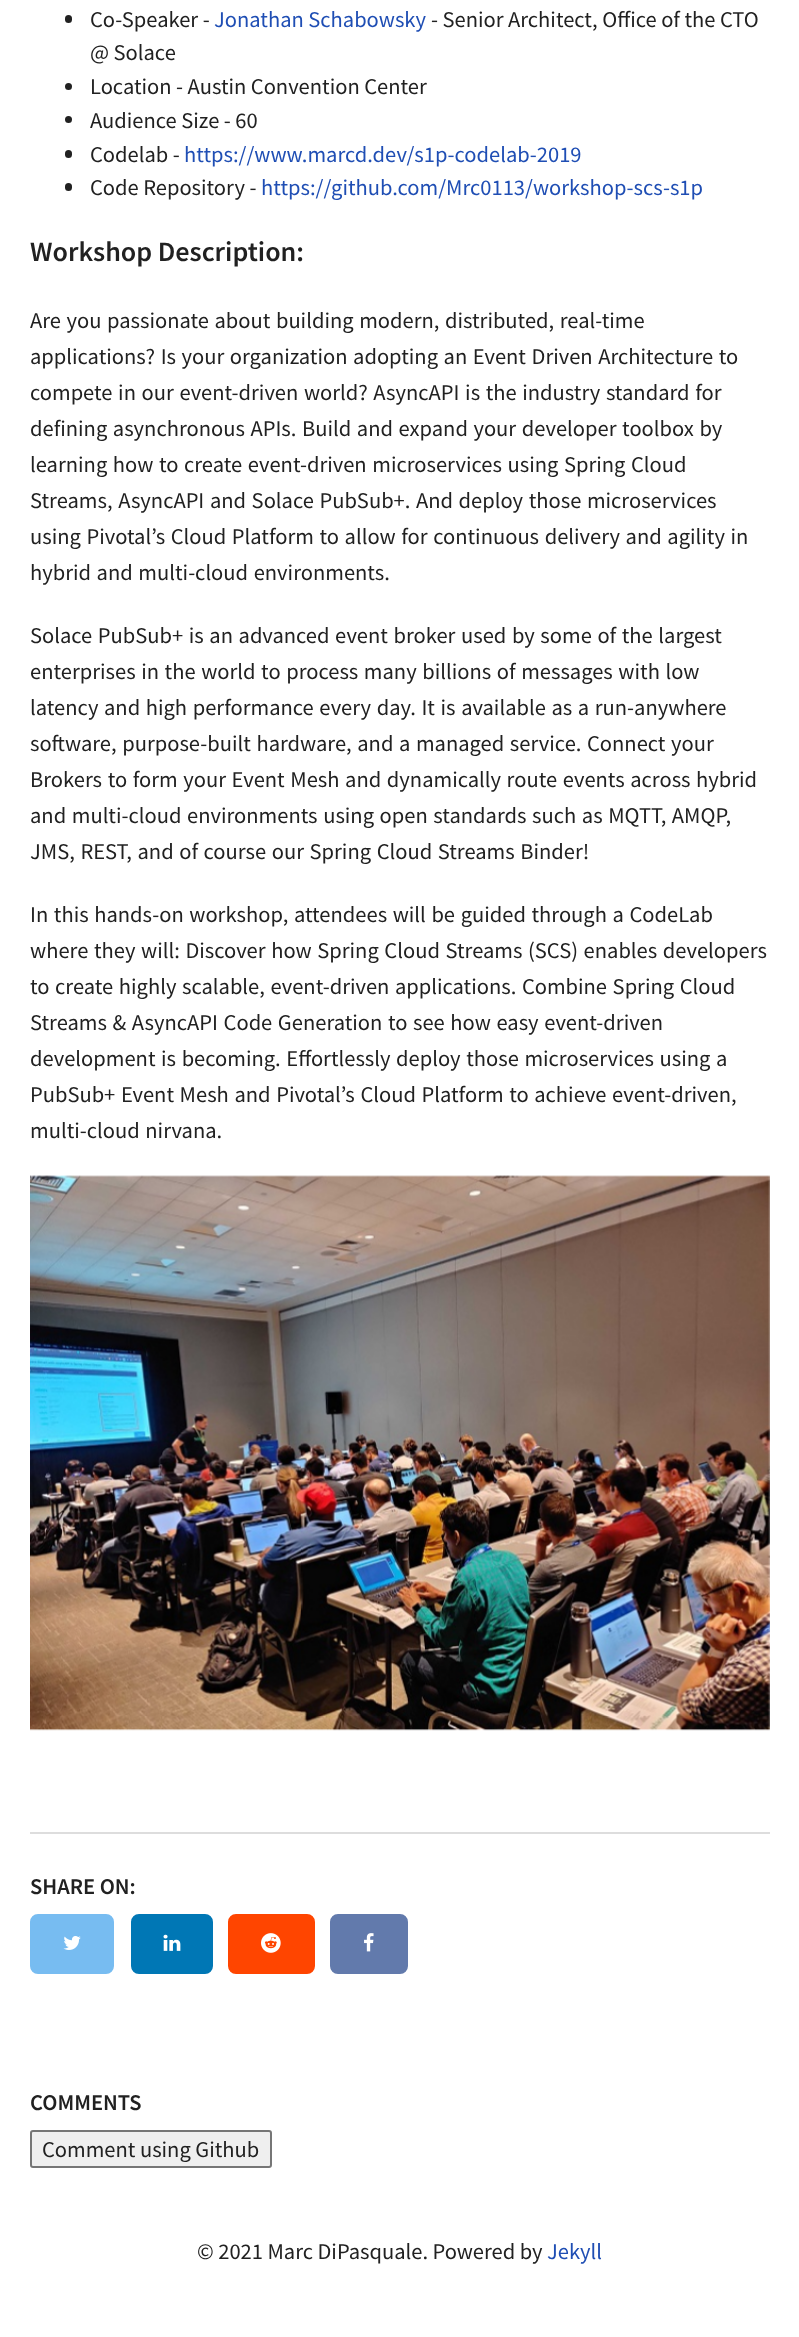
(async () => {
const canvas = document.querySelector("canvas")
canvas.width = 799
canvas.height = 2337
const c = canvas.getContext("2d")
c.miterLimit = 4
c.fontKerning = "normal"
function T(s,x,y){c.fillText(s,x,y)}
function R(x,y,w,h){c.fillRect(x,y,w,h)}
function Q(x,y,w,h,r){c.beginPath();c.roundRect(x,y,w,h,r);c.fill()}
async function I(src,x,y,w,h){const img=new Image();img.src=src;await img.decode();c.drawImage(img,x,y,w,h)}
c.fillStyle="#fff"
R(0,0,799,2337)
c.fillStyle="#212121"
Q(65,15,7,8,3.5)
c.font="22.5px Source Sans Pro"
T("Co-Speaker -",90,27)
c.fillStyle="#1f4eb4"
T("Jonathan Schabowsky",214,27)
c.fillStyle="#212121"
T("- Senior Architect, Office of the CTO",431,27)
T("@ Solace",90,60)
c.beginPath()
c.arc(68.5,86.5,3.5,0,7)
c.fill()
T("Location - Austin Convention Center",90,94)
c.beginPath()
c.arc(68.5,119.5,3.5,0,7)
c.fill()
T("Audience Size - 60",90,128)
Q(65,150,7,8,3.5)
T("Codelab -",90,162)
c.fillStyle="#1f4eb4"
T("https://www.marcd.dev/s1p-codelab-2019",184,162)
c.fillStyle="#212121"
Q(65,183,7,8,3.5)
T("Code Repository -",90,195)
c.fillStyle="#1f4eb4"
T("https://github.com/Mrc0113/workshop-scs-s1p",261,195)
c.font="600 28.1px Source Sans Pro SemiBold"
c.fillStyle="#212121"
T("Workshop Description:",30,261)
c.wordSpacing="1.1px"
c.font="22.5px Source Sans Pro"
T("Are you passionate about building modern, distributed, real-time",30,328)
T("applications? Is your organization adopting an Event Driven Architecture to",30,364)
T("compete in our event-driven world? AsyncAPI is the industry standard for",30,400)
T("defining asynchronous APIs. Build and expand your developer toolbox by",30,436)
T("learning how to create event-driven microservices using Spring Cloud",30,472)
T("Streams, AsyncAPI and Solace PubSub+. And deploy those microservices",30,508)
T("using Pivotal’s Cloud Platform to allow for continuous delivery and agility in",30,544)
T("hybrid and multi-cloud environments.",30,580)
T("Solace PubSub+ is an advanced event broker used by some of the largest",30,643)
T("enterprises in the world to process many billions of messages with low",30,679)
T("latency and high performance every day. It is available as a run-anywhere",30,715)
T("software, purpose-built hardware, and a managed service. Connect your",30,751)
T("Brokers to form your Event Mesh and dynamically route events across hybrid",30,787)
T("and multi-cloud environments using open standards such as MQTT, AMQP,",30,823)
T("JMS, REST, and of course our Spring Cloud Streams Binder!",30,859)
T("In this hands-on workshop, attendees will be guided through a CodeLab",30,922)
T("where they will: Discover how Spring Cloud Streams (SCS) enables developers",30,958)
T("to create highly scalable, event-driven applications. Combine Spring Cloud",30,994)
T("Streams & AsyncAPI Code Generation to see how easy event-driven",30,1030)
T("development is becoming. Effortlessly deploy those microservices using a",30,1066)
T("PubSub+ Event Mesh and Pivotal’s Cloud Platform to achieve event-driven,",30,1102)
T("multi-cloud nirvana.",30,1138)
await I("1.png",30,1175,740,556)
c.fillStyle="#ddd"
R(30,1832,740,2)
c.wordSpacing="0px"
c.font="600 22.5px Source Sans Pro SemiBold"
c.fillStyle="#212121"
T("SHARE ON:",30,1894)
c.fillStyle="#77bcf1"
c.beginPath()
c.roundRect(31.5,1915.5,81,57,6.5)
c.fill()
c.strokeStyle="#77bcf1"
c.lineWidth=3
c.stroke()
await I("2.png",63,1936,18,14)
c.fillStyle="#0077b5"
c.beginPath()
c.roundRect(132.5,1915.5,79,57,6.5)
c.fill()
c.strokeStyle="#0077b5"
c.stroke()
await I("3.png",163,1934,18,17)
c.fillStyle="#ff4500"
c.beginPath()
c.roundRect(229.5,1915.5,84,57,6.5)
c.fill()
c.strokeStyle="#ff4500"
c.stroke()
await I("4.png",261,1933,20,20)
c.fillStyle="#627aac"
c.beginPath()
c.roundRect(331.5,1915.5,75,57,6.5)
c.fill()
c.strokeStyle="#627aac"
c.stroke()
await I("5.png",364,1933,10,19)
c.fillStyle="#212121"
T("COMMENTS",30,2110)
c.fillStyle="#efefef"
c.beginPath()
c.roundRect(31,2131,240,36,2)
c.fill()
c.strokeStyle="#767676"
c.lineWidth=2
c.stroke()
c.font="22.5px Source Sans Pro"
c.fillStyle="#212121"
T("Comment using Github",42,2157)
T("© 2021 Marc DiPasquale. Powered by",197,2259)
c.fillStyle="#1f4eb4"
T("Jekyll",547,2259)
})()
